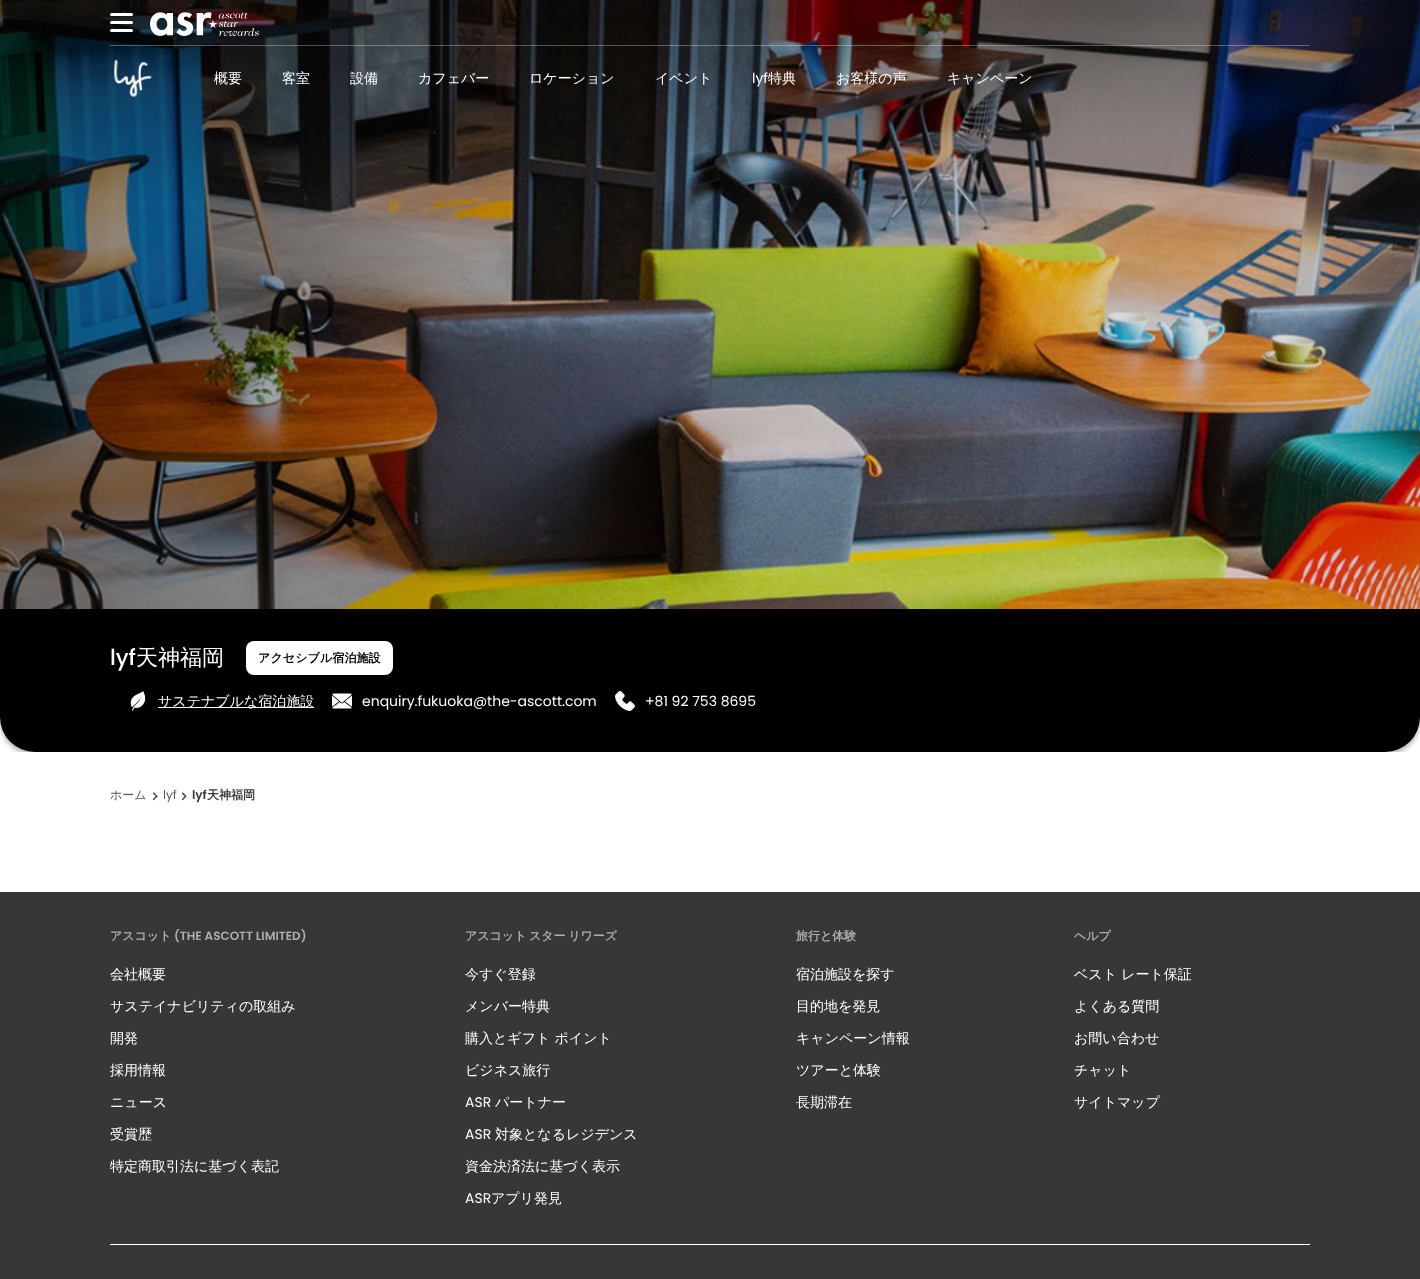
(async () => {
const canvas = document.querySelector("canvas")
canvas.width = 1420
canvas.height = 1279
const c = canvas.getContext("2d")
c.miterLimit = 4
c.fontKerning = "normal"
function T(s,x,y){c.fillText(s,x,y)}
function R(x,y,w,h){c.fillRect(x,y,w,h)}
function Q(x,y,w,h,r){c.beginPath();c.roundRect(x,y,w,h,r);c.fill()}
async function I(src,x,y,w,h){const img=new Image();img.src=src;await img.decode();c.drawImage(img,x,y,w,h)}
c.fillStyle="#fff"
R(0,0,1420,1279)
c.fillStyle="#00000040"
c.filter="blur(2px)"
c.beginPath()
c.roundRect(0,613,1420,143,35)
c.fill()
c.filter="none"
await I("1.png",0,0,1420,609)
c.fillStyle="#fff"
Q(110,13,23,3,1.5)
Q(110,21,23,3,1.5)
Q(110,29,23,3,1.5)
await I("2.png",150,12,109,24)
c.fillStyle="#ffffff4d"
R(110,45,1200,1)
await I("3.png",114,59,38,38)
c.font="500 14px WenQuanYi Zen Hei"
c.fillStyle="#fff"
T("概要",214,83)
T("客室",282,83)
T("設備",350,83)
T("カフェバー",418,83)
T("ロケーション",529,83)
T("イベント",655,83)
c.font="14px Poppins"
T("lyf",752,83)
c.font="500 14px WenQuanYi Zen Hei"
T("特典",768,83)
T("お客様の声",836,83)
T("キャンペーン",947,83)
c.fillStyle="#000"
c.beginPath()
c.roundRect(0,609,1420,143,[0,0,35,35])
c.fill()
c.font="500 22px Poppins"
c.fillStyle="#fff"
T("lyf",110,665)
c.font="500 22px WenQuanYi Zen Hei"
T("天神福岡",136,665)
Q(246,641,147,34,8)
c.letterSpacing="0.1px"
c.font="bold 12px WenQuanYi Zen Hei"
c.fillStyle="#000"
T("アクセシブル宿泊施設",258,662)
await I("4.png",130,691,16,20)
c.fillStyle="#fff"
R(158,707,156,1)
c.letterSpacing="0px"
c.font="500 14px WenQuanYi Zen Hei"
T("サステナブルな宿泊施設",158,706)
await I("5.png",332,693,20,16)
c.font="14px Poppins"
T("enquiry.fukuoka@the-ascott.com",362,706)
await I("6.png",615,691,20,20)
T("+81 92 753 8695",645,706)
Q(0,752,1420,76,4)
c.font="500 12px WenQuanYi Zen Hei"
c.fillStyle="#555"
T("ホーム",110,799)
await I("7.png",152,792,6,9)
c.font="12px Poppins"
T("lyf",163,799)
await I("7.png",181,792,6,9)
c.font="600 12px Poppins"
c.fillStyle="#373737"
T("lyf",192,799)
c.font="bold 12px WenQuanYi Zen Hei"
T("天神福岡",207,799)
R(0,892,1420,387)
c.fillStyle="#adadad"
T("アスコット",110,940)
c.font="600 12px Poppins"
T("(THE ASCOTT LIMITED)",174,940)
c.font="500 14px WenQuanYi Zen Hei"
c.fillStyle="#fff"
T("会社概要",110,979)
T("サステイナビリティの取組み",110,1011)
T("開発",110,1043)
T("採用情報",110,1075)
T("ニュース",110,1107)
T("受賞歴",110,1139)
T("特定商取引法に基づく表記",110,1171)
c.wordSpacing="-1px"
c.font="bold 12px WenQuanYi Zen Hei"
c.fillStyle="#adadad"
T("アスコット スター リワーズ",465,940)
c.wordSpacing="0px"
c.font="500 14px WenQuanYi Zen Hei"
c.fillStyle="#fff"
T("今すぐ登録",465,979)
T("メンバー特典",465,1011)
T("購入とギフト ポイント",465,1043)
T("ビジネス旅行",465,1075)
c.font="14px Poppins"
T("ASR",465,1107)
c.font="500 14px WenQuanYi Zen Hei"
T("パートナー",495,1107)
c.font="14px Poppins"
T("ASR",465,1139)
c.font="500 14px WenQuanYi Zen Hei"
T("対象となるレジデンス",495,1139)
T("資金決済法に基づく表示",465,1171)
c.font="14px Poppins"
T("ASR",465,1203)
c.font="500 14px WenQuanYi Zen Hei"
T("アプリ発見",491,1203)
c.font="bold 12px WenQuanYi Zen Hei"
c.fillStyle="#adadad"
T("旅行と体験",796,940)
c.font="500 14px WenQuanYi Zen Hei"
c.fillStyle="#fff"
T("宿泊施設を探す",796,979)
T("目的地を発見",796,1011)
T("キャンペーン情報",796,1043)
T("ツアーと体験",796,1075)
T("長期滞在",796,1107)
c.font="bold 12px WenQuanYi Zen Hei"
c.fillStyle="#adadad"
T("ヘルプ",1074,940)
c.font="500 14px WenQuanYi Zen Hei"
c.fillStyle="#fff"
T("ベスト レート保証",1074,979)
T("よくある質問",1074,1011)
T("お問い合わせ",1074,1043)
T("チャット",1074,1075)
T("サイトマップ",1074,1107)
R(110,1244,1200,1)
})()
